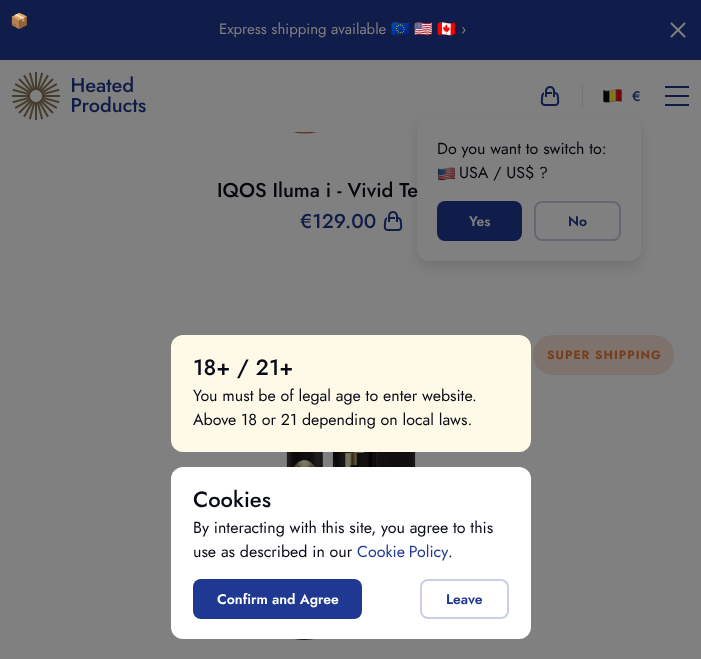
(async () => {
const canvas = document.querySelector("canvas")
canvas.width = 701
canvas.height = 659
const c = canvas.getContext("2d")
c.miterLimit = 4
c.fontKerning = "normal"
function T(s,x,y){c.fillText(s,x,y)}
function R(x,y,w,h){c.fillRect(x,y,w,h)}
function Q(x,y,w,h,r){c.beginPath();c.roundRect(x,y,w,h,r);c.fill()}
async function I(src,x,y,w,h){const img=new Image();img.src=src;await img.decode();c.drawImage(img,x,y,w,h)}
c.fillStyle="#808080"
R(0,0,701,659)
c.fillStyle="#101c49"
R(0,0,701,60)
c.font="15px Noto Color Emoji"
c.fillStyle="#808080"
T("📦",10,26)
c.font="15px Jost"
T("Express shipping available",219,34)
c.font="15px Noto Color Emoji"
T("🇪🇺",391,34)
T("🇺🇸",414,34)
T("🇨🇦",437,34)
c.font="15px Jost"
T("›",461,34)
await I("1.png",670,22,16,16)
await I("2.png",12,72,134,48)
await I("3.png",540,86,20,20)
c.fillStyle="#101c48"
R(665,86,24,2)
R(665,95,24,2)
R(665,104,24,2)
c.fillStyle="#727476"
R(582,84,1,24)
await I("4.png",603,89,19,14)
c.font="500 14px Jost"
c.fillStyle="#101c48"
T("€",632,101)
await I("6.png",287,132,129,2)
await I("7.png",383,211,20,20)
c.fillStyle="#04060c1f"
c.filter="blur(6px)"
c.beginPath()
c.roundRect(417,123,224,144,12)
c.fill()
c.filter="none"
c.fillStyle="#808080"
Q(417,117,224,144,12)
c.font="16px Jost"
c.fillStyle="#04060c"
T("Do you want to switch to:",437,154)
await I("5.png",438,167,17,14)
T("USA / US$ ?",459,178)
c.fillStyle="#101c49"
Q(437,201,85,40,8)
c.font="600 14px Jost"
c.fillStyle="#808080"
T("Yes",469,226)
c.beginPath()
c.roundRect(535,202,85,38,7)
c.strokeStyle="#656872"
c.lineWidth=2
c.stroke()
c.fillStyle="#101c48"
T("No",568,226)
c.font="500 20px Jost"
c.fillStyle="#04060c"
T("IQOS Iluma i - Vivid Te",217,197)
c.fillStyle="#101c48"
T("€129",300,228)
T(".00",345,228)
c.fillStyle="#7e726c"
Q(533,335,141,40,20)
c.letterSpacing="1px"
c.font="bold 12px Jost"
c.fillStyle="#773d1c"
T("SUPER SHIPPING",547,359)
await I("8.png",286,452,131,188)
c.fillStyle="#fffae8"
Q(171,335,360,117,12)
c.letterSpacing="0px"
c.font="500 22px Jost"
c.fillStyle="#080b17"
T("18+ / 21+",193,375)
c.font="16px Jost"
T("You must be of legal age to enter website.",193,401)
T("Above 18 or 21 depending on local laws.",193,425)
c.fillStyle="#fff"
Q(171,467,360,172,12)
c.font="500 22px Jost"
c.fillStyle="#080b17"
T("Cookies",193,507)
c.font="16px Jost"
T("By interacting with this site, you agree to this",193,533)
T("use as described in our",193,557)
c.wordSpacing="-1px"
c.fillStyle="#1f3891"
T("Cookie Policy",357,557)
c.wordSpacing="0px"
c.fillStyle="#080b17"
T(".",448,557)
c.fillStyle="#1f3891"
Q(193,579,169,40,8)
c.font="600 14px Jost"
c.fillStyle="#fff"
T("Confirm and Agree",217,604)
c.beginPath()
c.roundRect(421,580,87,38,7)
c.strokeStyle="#c9cfe4"
c.stroke()
c.fillStyle="#1f3891"
T("Leave",446,604)
})()
